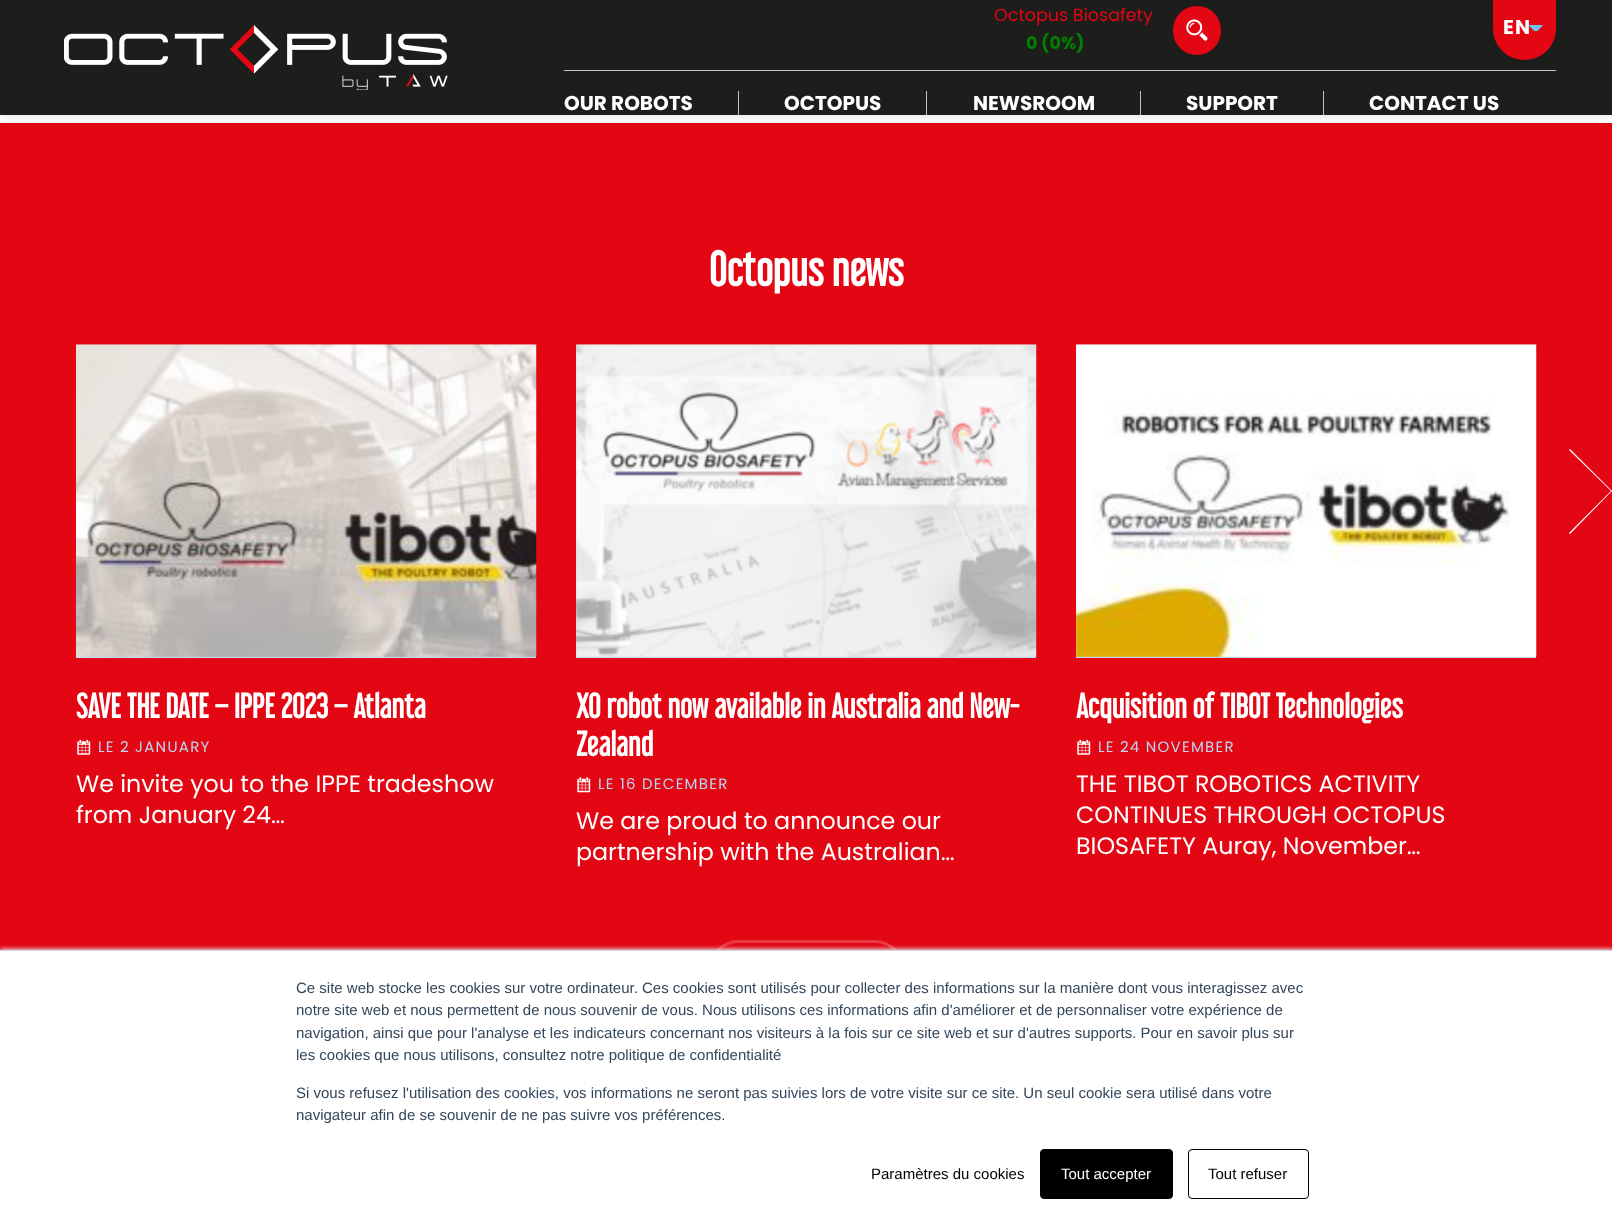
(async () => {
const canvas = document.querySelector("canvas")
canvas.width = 1612
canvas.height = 1231
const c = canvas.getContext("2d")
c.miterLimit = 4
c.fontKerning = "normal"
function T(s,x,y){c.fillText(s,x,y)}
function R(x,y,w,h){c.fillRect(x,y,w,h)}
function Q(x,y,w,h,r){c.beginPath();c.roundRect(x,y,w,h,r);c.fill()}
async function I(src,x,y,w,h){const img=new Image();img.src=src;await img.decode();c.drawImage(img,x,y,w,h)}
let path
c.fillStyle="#fff"
R(0,0,1612,1231)
c.fillStyle="#e30613"
R(0,123,1612,827)
c.fillStyle="#28282829"
c.filter="blur(6px)"
c.beginPath()
c.rect(0,0,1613,115)
c.fill()
c.filter="none"
c.fillStyle="#1d1d1b"
R(0,0,1612,115)
await I("1.png",64,25,384,65)
c.font="17.5px Poppins"
c.fillStyle="#e30613"
T("Octopus Biosafety",994,21)
c.font="bold 17.5px Poppins"
c.fillStyle="#008000"
T("0 (0%)",1026,49)
c.fillStyle="#e30613"
Q(1173,6,48,49,24)
await I("2.png",1186,19,22,22)
path = new Path2D("M1493-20h63v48.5c0 17.5-14 31.5-31.5 31.5c-17.5 0-31.5-14-31.5-31.5z")
c.fill(path)
await I("3.png",1529,25,14,6)
c.letterSpacing="1.25px"
c.font="bold 20px Poppins"
c.fillStyle="#fff"
T("EN",1503,34)
c.fillStyle="#c1c1c1"
R(564,70,992,1)
R(738,91,1,24)
c.letterSpacing="0px"
c.fillStyle="#fff"
T("OUR ROBOTS",564,110)
c.fillStyle="#c1c1c1"
R(926,91,1,24)
c.fillStyle="#fff"
T("OCTOPUS",784,110)
c.fillStyle="#c1c1c1"
R(1140,91,1,24)
c.fillStyle="#fff"
T("NEWSROOM",973,110)
c.fillStyle="#c1c1c1"
R(1323,91,1,24)
c.fillStyle="#fff"
T("SUPPORT",1186,110)
T("CONTACT US",1369,110)
c.font="bold 43.75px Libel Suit"
T("Octopus news",709,286)
path = new Path2D("M1570 449l42 42v1l-43-42z")
c.fill(path)
path = new Path2D("M1612 490v1l-42 43l-1-1z")
c.fill(path)
c.fillStyle="#bed6f1"
R(76,345,460,313)
await I("4.png",76,344,461,313)
c.font="bold 31.25px Libel Suit"
c.fillStyle="#fff"
T("SAVE THE DATE – IPPE 2023 – Atlanta",76,718)
await I("5.png",77,739,14,16)
c.letterSpacing="1.25px"
c.font="15px Poppins"
c.fillStyle="#bed6f1"
T("LE 2 JANUARY",98,752)
c.letterSpacing="0px"
c.font="23.75px Poppins"
c.fillStyle="#fff"
T("We invite you to the IPPE tradeshow",76,792)
T("from January 24…",76,823)
c.fillStyle="#bed6f1"
R(576,345,460,313)
await I("6.png",576,344,461,313)
c.font="bold 31.25px Libel Suit"
c.fillStyle="#fff"
T("XO robot now available in Australia and New-",576,718)
T("Zealand",576,756)
await I("7.png",577,777,14,16)
c.letterSpacing="1.25px"
c.font="15px Poppins"
c.fillStyle="#bed6f1"
T("LE 16 DECEMBER",598,789)
c.letterSpacing="0px"
c.font="23.75px Poppins"
c.fillStyle="#fff"
T("We are proud to announce our",576,829)
T("partnership with the Australian…",576,860)
c.fillStyle="#bed6f1"
R(1076,345,460,313)
await I("8.png",1076,344,461,313)
c.font="bold 31.25px Libel Suit"
c.fillStyle="#fff"
T("Acquisition of TIBOT Technologies",1076,718)
await I("5.png",1077,739,14,16)
c.letterSpacing="1.25px"
c.font="15px Poppins"
c.fillStyle="#bed6f1"
T("LE 24 NOVEMBER",1098,752)
c.letterSpacing="0px"
c.font="23.75px Poppins"
c.fillStyle="#fff"
T("THE TIBOT ROBOTICS ACTIVITY",1076,792)
T("CONTINUES THROUGH OCTOPUS",1076,823)
T("BIOSAFETY Auray, November…",1076,854)
c.beginPath()
c.roundRect(709.5,941.5,194,58,29)
c.strokeStyle="#e93842"
c.lineWidth=3
c.stroke()
c.fillStyle="#eaf0f6"
c.filter="blur(2px)"
c.beginPath()
c.rect(0,949,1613,281)
c.fill()
c.filter="none"
c.fillStyle="#fff"
R(0,951,1612,280)
c.fillStyle="#cbd6e2"
R(0,950,1612,1)
c.font="15px Liberation Sans"
c.fillStyle="#33475b"
T("Ce site web stocke les cookies sur votre ordinateur. Ces cookies sont utilisés pour collecter des informations sur la manière dont vous interagissez avec",296,993)
T("notre site web et nous permettent de nous souvenir de vous. Nous utilisons ces informations afin d'améliorer et de personnaliser votre expérience de",296,1015)
T("navigation, ainsi que pour l'analyse et les indicateurs concernant nos visiteurs à la fois sur ce site web et sur d'autres supports. Pour en savoir plus sur",296,1038)
T("les cookies que nous utilisons, consultez notre politique de confidentialité",296,1060)
T("Si vous refusez l'utilisation des cookies, vos informations ne seront pas suivies lors de votre visite sur ce site. Un seul cookie sera utilisé dans votre",296,1098)
T("navigateur afin de se souvenir de ne pas suivre vos préférences.",296,1120)
c.fillStyle="#000"
T("Paramètres du cookies",871,1179)
c.beginPath()
c.roundRect(1040.5,1149.5,132,49,3.5)
c.fill()
c.strokeStyle="#000"
c.lineWidth=1
c.stroke()
c.fillStyle="#fff"
T("Tout accepter",1061,1179)
c.beginPath()
c.roundRect(1188.5,1149.5,120,49,3.5)
c.stroke()
c.fillStyle="#000"
T("Tout refuser",1208,1179)
})()
